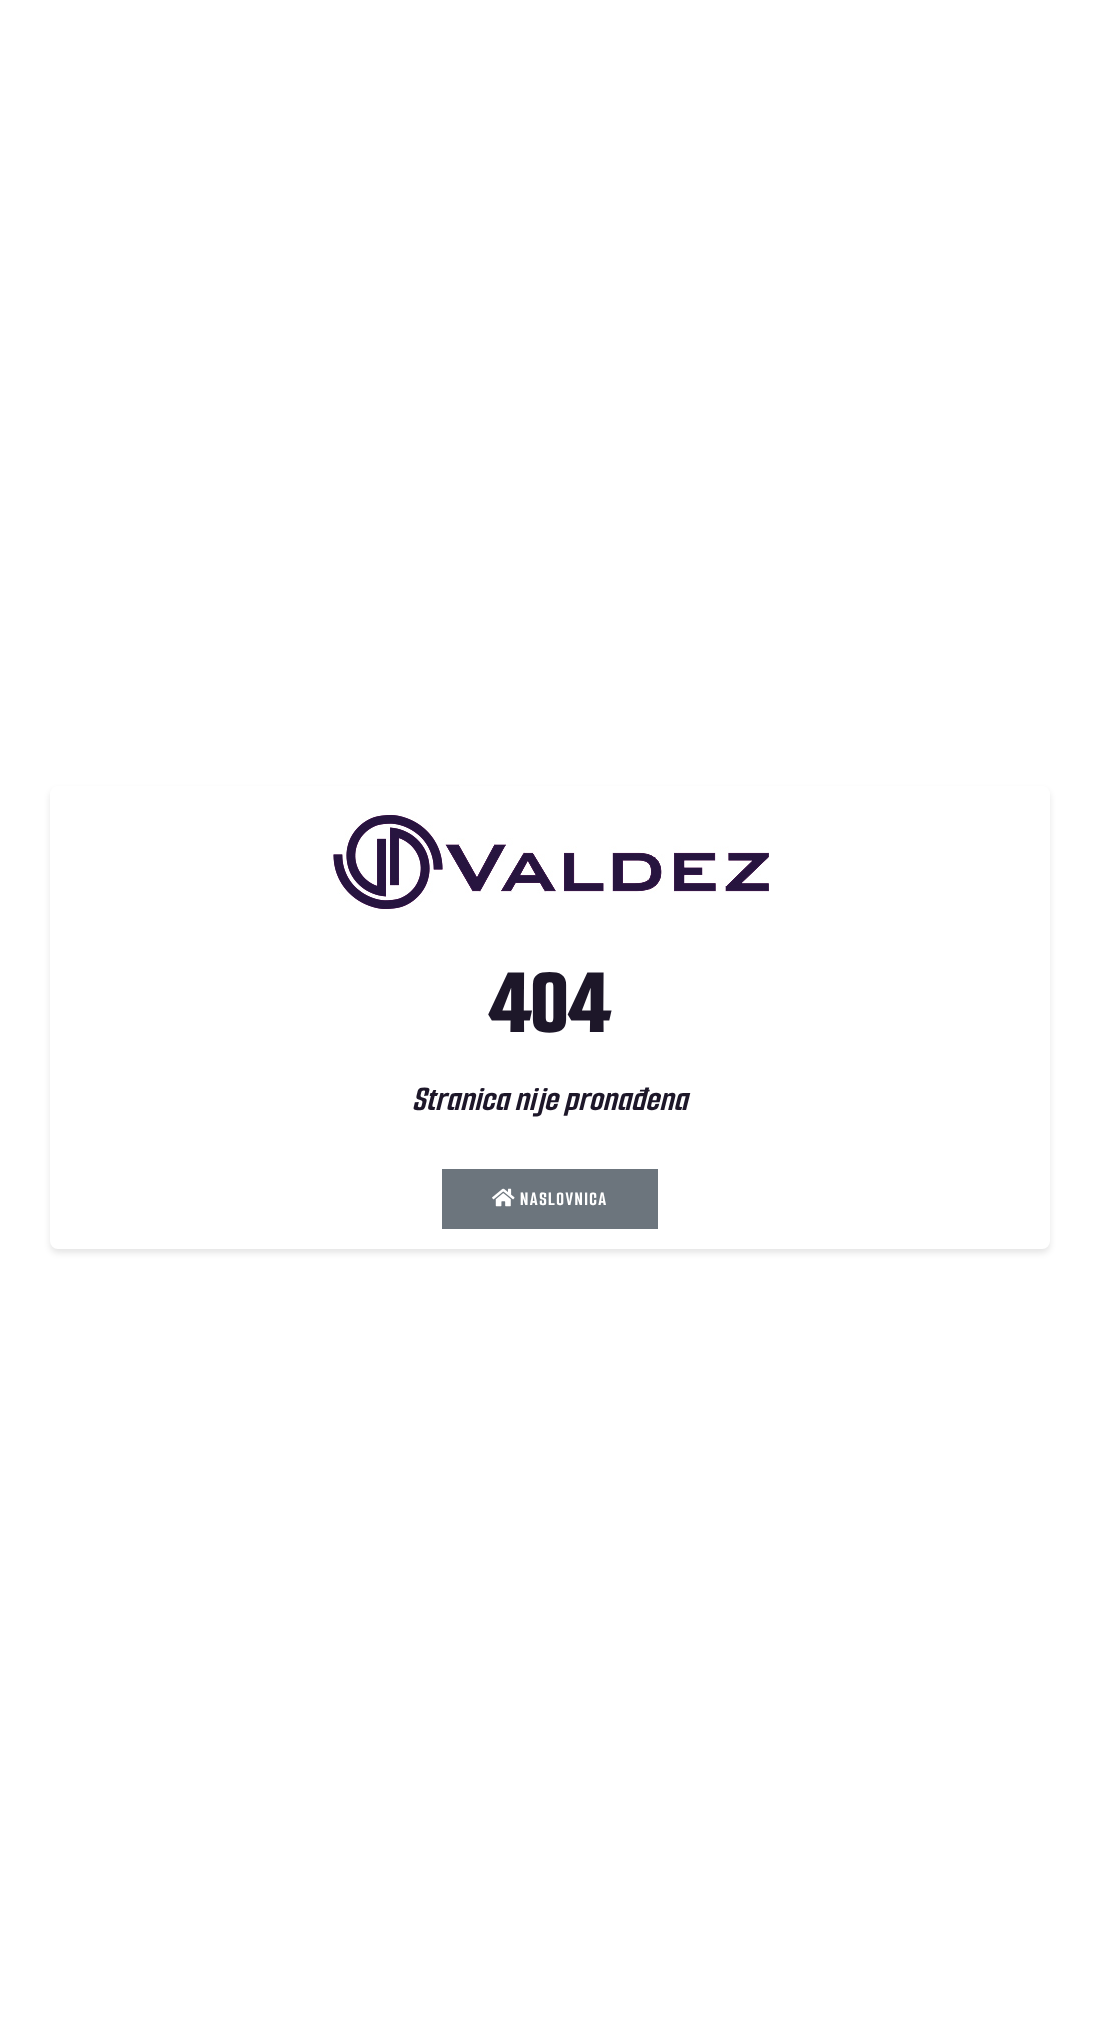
(async () => {
const canvas = document.querySelector("canvas")
canvas.width = 1100
canvas.height = 2035
const c = canvas.getContext("2d")
c.miterLimit = 4
c.fontKerning = "normal"
function T(s,x,y){c.fillText(s,x,y)}
function R(x,y,w,h){c.fillRect(x,y,w,h)}
function Q(x,y,w,h,r){c.beginPath();c.roundRect(x,y,w,h,r);c.fill()}
async function I(src,x,y,w,h){const img=new Image();img.src=src;await img.decode();c.drawImage(img,x,y,w,h)}
c.fillStyle="#fff"
R(0,0,1100,2035)
c.fillStyle="#0000001a"
c.filter="blur(3px)"
c.beginPath()
c.roundRect(50,790,1000,463,8)
c.fill()
c.filter="none"
c.fillStyle="#fff"
Q(50,786,1000,463,8)
await I("1.png",331,814,438,96)
c.font="800 96px Smooch Sans"
c.fillStyle="#1d1729"
T("404",488,1032)
c.font="italic bold 36px Smooch Sans"
T("Stranica nije pronađena",412,1110)
c.fillStyle="#6c757d"
R(442,1169,216,60)
await I("2.png",492,1188,23,19)
c.letterSpacing="1.5px"
c.font="bold 20px Smooch Sans"
c.fillStyle="#fff"
T("NASLOVNICA",520,1205)
})()
